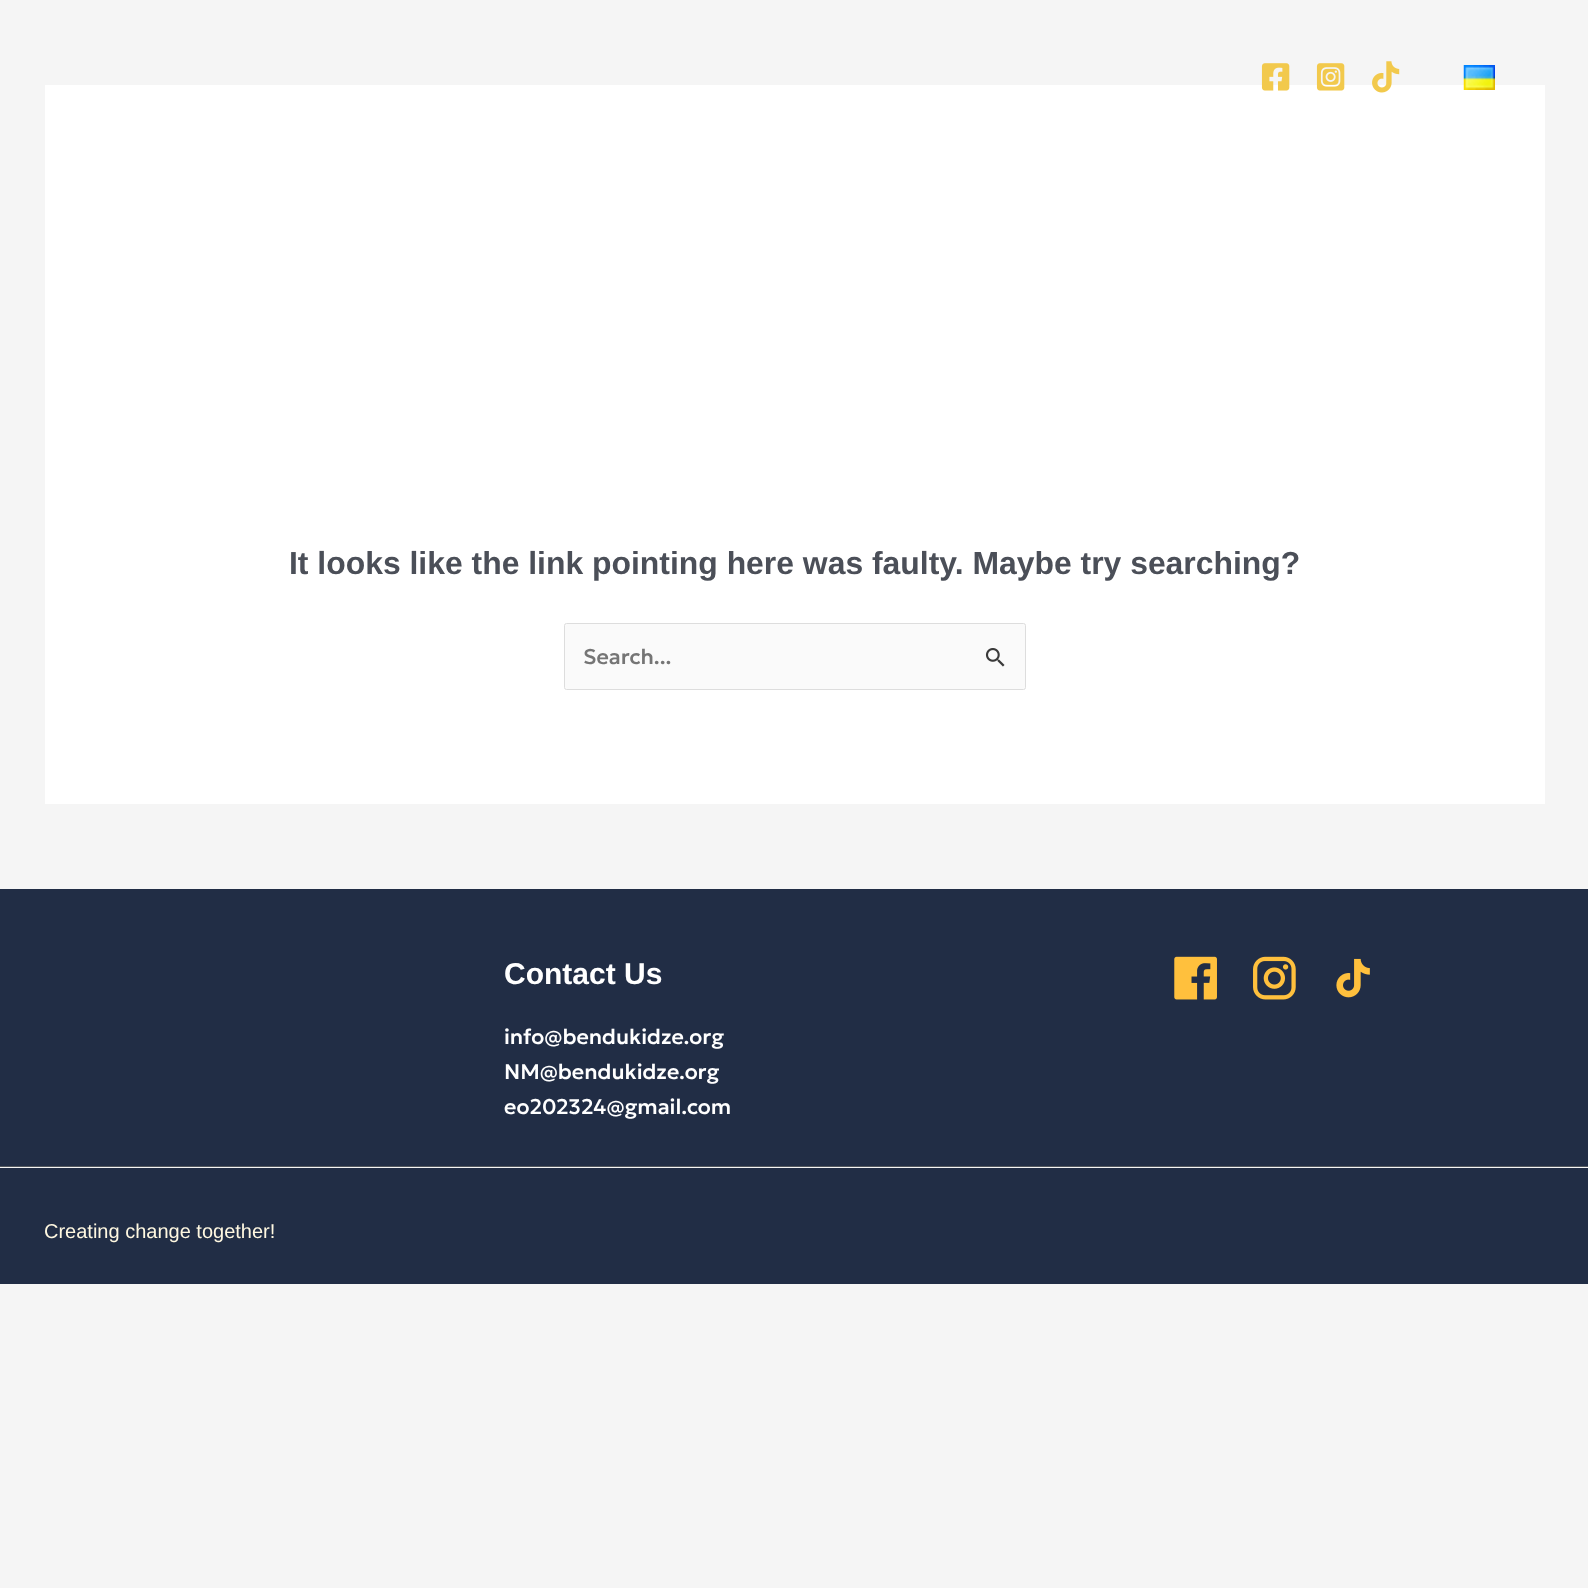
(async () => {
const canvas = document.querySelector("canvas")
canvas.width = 1588
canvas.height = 1588
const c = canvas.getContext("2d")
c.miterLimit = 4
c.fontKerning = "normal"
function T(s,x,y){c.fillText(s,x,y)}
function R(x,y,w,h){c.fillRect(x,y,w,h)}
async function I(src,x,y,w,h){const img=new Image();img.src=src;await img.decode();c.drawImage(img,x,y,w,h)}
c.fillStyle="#f5f5f5"
R(0,0,1588,1588)
c.fillStyle="#fff"
R(45,85,1500,719)
await I("1.png",1261,63,29,28)
await I("2.png",1316,63,29,28)
await I("3.png",1372,61,28,32)
await I("4.png",1463,65,32,25)
c.font="bold 31.9px Liberation Sans"
c.fillStyle="#4b4f58"
T("It looks like the link pointing here was faulty. Maybe try searching?",289,574)
c.fillStyle="#fafafa"
c.beginPath()
c.roundRect(564.5,623.5,461,66,2)
c.fill()
c.strokeStyle="#ddd"
c.stroke()
c.font="100 21.25px Geologica"
c.fillStyle="#757575"
T("Search...",583,664)
await I("5.png",985,648,20,19)
c.fillStyle="#212d45"
R(0,889,1588,277)
c.font="bold 30px Liberation Sans"
c.fillStyle="#fff"
T("Contact Us",504,984)
c.font="100 21.25px Geologica"
T("info@bendukidze.org",504,1044)
T("NM@bendukidze.org",504,1079)
T("eo202324@gmail.com",504,1114)
await I("6.png",1174,956,43,44)
await I("7.png",1253,956,43,44)
await I("8.png",1336,958,34,40)
c.fillStyle="#212d45"
R(0,1168,1588,116)
c.fillStyle="#54595f"
R(0,1166,1588,1)
c.font="20px Liberation Sans"
c.fillStyle="#fff8e1"
T("Creating change together!",44,1238)
})()
